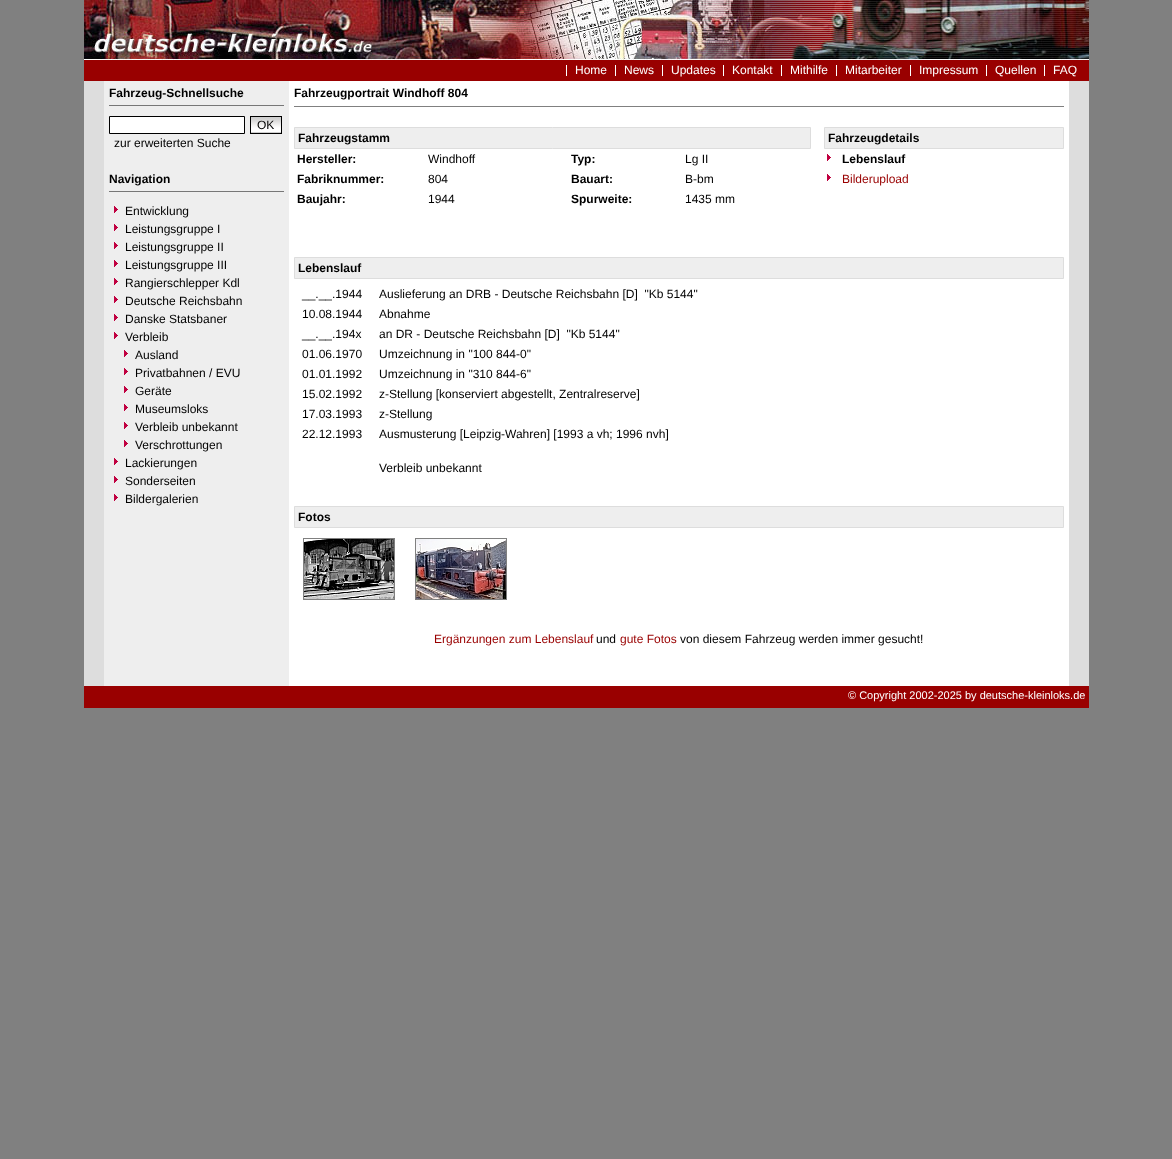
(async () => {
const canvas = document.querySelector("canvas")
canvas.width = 1172
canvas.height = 1159
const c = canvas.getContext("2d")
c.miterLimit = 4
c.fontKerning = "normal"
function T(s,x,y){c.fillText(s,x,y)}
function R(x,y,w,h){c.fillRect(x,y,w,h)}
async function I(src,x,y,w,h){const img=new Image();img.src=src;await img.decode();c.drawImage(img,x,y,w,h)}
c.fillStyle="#808080"
R(0,0,1172,1159)
await I("1.png",84,81,1005,605)
await I("2.png",84,0,1005,60)
c.fillStyle="#900"
R(84,60,1005,21)
c.font="12px Liberation Sans"
c.fillStyle="#fff"
T("Home",575,74)
R(566,65,1,11)
T("News",624,74)
R(615,65,1,11)
T("Updates",671,74)
R(662,65,1,11)
T("Kontakt",732,74)
R(723,65,1,11)
T("Mithilfe",790,74)
R(781,65,1,11)
T("Mitarbeiter",845,74)
R(836,65,1,11)
T("Impressum",919,74)
R(910,65,1,11)
T("Quellen",995,74)
R(986,65,1,11)
T("FAQ",1053,74)
R(1044,65,1,11)
c.fillStyle="#777"
R(109,105,175,1)
c.font="bold 12px Liberation Sans"
c.fillStyle="#000"
T("Fahrzeug-Schnellsuche",109,97)
c.fillStyle="#fff"
c.beginPath()
c.rect(109.5,116.5,135,17)
c.fill()
c.strokeStyle="#000"
c.stroke()
await I("3.png",251,117,30,16)
c.strokeRect(250.5,116.5,31,17)
c.font="12px Liberation Sans"
c.fillStyle="#000"
T("OK",257,129)
T("zur erweiterten Suche",114,147)
c.fillStyle="#777"
R(109,191,175,1)
c.font="bold 12px Liberation Sans"
c.fillStyle="#000"
T("Navigation",109,183)
await I("4.png",114,206,4,7)
c.font="12px Liberation Sans"
T("Entwicklung",125,215)
await I("4.png",114,224,4,7)
T("Leistungsgruppe I",125,233)
await I("4.png",114,242,4,7)
T("Leistungsgruppe II",125,251)
await I("4.png",114,260,4,7)
T("Leistungsgruppe III",125,269)
await I("4.png",114,278,4,7)
T("Rangierschlepper Kdl",125,287)
await I("4.png",114,296,4,7)
T("Deutsche Reichsbahn",125,305)
await I("4.png",114,314,4,7)
T("Danske Statsbaner",125,323)
await I("4.png",114,332,4,7)
T("Verbleib",125,341)
await I("4.png",124,350,4,7)
T("Ausland",135,359)
await I("4.png",124,368,4,7)
T("Privatbahnen / EVU",135,377)
await I("4.png",124,386,4,7)
T("Geräte",135,395)
await I("4.png",124,404,4,7)
T("Museumsloks",135,413)
await I("4.png",124,422,4,7)
T("Verbleib unbekannt",135,431)
await I("4.png",124,440,4,7)
T("Verschrottungen",135,449)
await I("4.png",114,458,4,7)
T("Lackierungen",125,467)
await I("4.png",114,476,4,7)
T("Sonderseiten",125,485)
await I("4.png",114,494,4,7)
T("Bildergalerien",125,503)
c.font="bold 12px Liberation Sans"
T("Fahrzeugportrait Windhoff 804",294,97)
c.fillStyle="#808080"
R(294,106,770,1)
c.fillStyle="#eee"
c.beginPath()
c.rect(294.5,127.5,516,21)
c.fill()
c.strokeStyle="#ddd"
c.stroke()
c.fillStyle="#000"
T("Fahrzeugstamm",298,142)
c.fillStyle="#eee"
c.beginPath()
c.rect(824.5,127.5,239,21)
c.fill()
c.stroke()
c.fillStyle="#000"
T("Fahrzeugdetails",828,142)
T("Hersteller:",297,163)
c.font="12px Liberation Sans"
T("Windhoff",428,163)
c.font="bold 12px Liberation Sans"
T("Typ:",571,163)
c.font="12px Liberation Sans"
T("Lg II",685,163)
await I("5.png",827,154,4,7)
c.font="bold 12px Liberation Sans"
T("Lebenslauf",842,163)
T("Fabriknummer:",297,183)
c.font="12px Liberation Sans"
T("804",428,183)
c.font="bold 12px Liberation Sans"
T("Bauart:",571,183)
c.font="12px Liberation Sans"
T("B-bm",685,183)
await I("5.png",827,174,4,7)
c.fillStyle="#900"
T("Bilderupload",842,183)
c.font="bold 12px Liberation Sans"
c.fillStyle="#000"
T("Baujahr:",297,203)
c.font="12px Liberation Sans"
T("1944",428,203)
c.font="bold 12px Liberation Sans"
T("Spurweite:",571,203)
c.font="12px Liberation Sans"
T("1435 mm",685,203)
c.fillStyle="#eee"
c.beginPath()
c.rect(294.5,257.5,769,21)
c.fill()
c.stroke()
c.font="bold 12px Liberation Sans"
c.fillStyle="#000"
T("Lebenslauf",298,272)
c.font="12px Liberation Sans"
T("__.__.1944",302,298)
T("Auslieferung an DRB - Deutsche Reichsbahn [D]  \"Kb 5144\"",379,298)
T("10.08.1944",302,318)
T("Abnahme",379,318)
T("__.__.194x",302,338)
T("an DR - Deutsche Reichsbahn [D]  \"Kb 5144\"",379,338)
T("01.06.1970",302,358)
T("Umzeichnung in \"100 844-0\"",379,358)
T("01.01.1992",302,378)
T("Umzeichnung in \"310 844-6\"",379,378)
T("15.02.1992",302,398)
T("z-Stellung [konserviert abgestellt, Zentralreserve]",379,398)
T("17.03.1993",302,418)
T("z-Stellung",379,418)
T("22.12.1993",302,438)
T("Ausmusterung [Leipzig-Wahren] [1993 a vh; 1996 nvh]",379,438)
T("Verbleib unbekannt",379,472)
c.fillStyle="#eee"
c.beginPath()
c.rect(294.5,506.5,769,21)
c.fill()
c.stroke()
c.font="bold 12px Liberation Sans"
c.fillStyle="#000"
T("Fotos",298,521)
c.strokeStyle="#808080"
c.strokeRect(303.5,538.5,91,61)
await I("6.png",304,539,90,60)
c.strokeRect(415.5,538.5,91,61)
await I("7.png",416,539,90,60)
c.font="12px Liberation Sans"
c.fillStyle="#900"
T("Ergänzungen zum Lebenslauf",434,643)
c.fillStyle="#000"
T("und",596,643)
c.fillStyle="#900"
T("gute Fotos",620,643)
c.fillStyle="#000"
T("von diesem Fahrzeug werden immer gesucht!",680,643)
c.fillStyle="#900"
R(84,686,1005,22)
c.font="11px Liberation Sans"
c.fillStyle="#fff"
T("© Copyright 2002-2025 by deutsche-kleinloks.de",848,699)
})()
